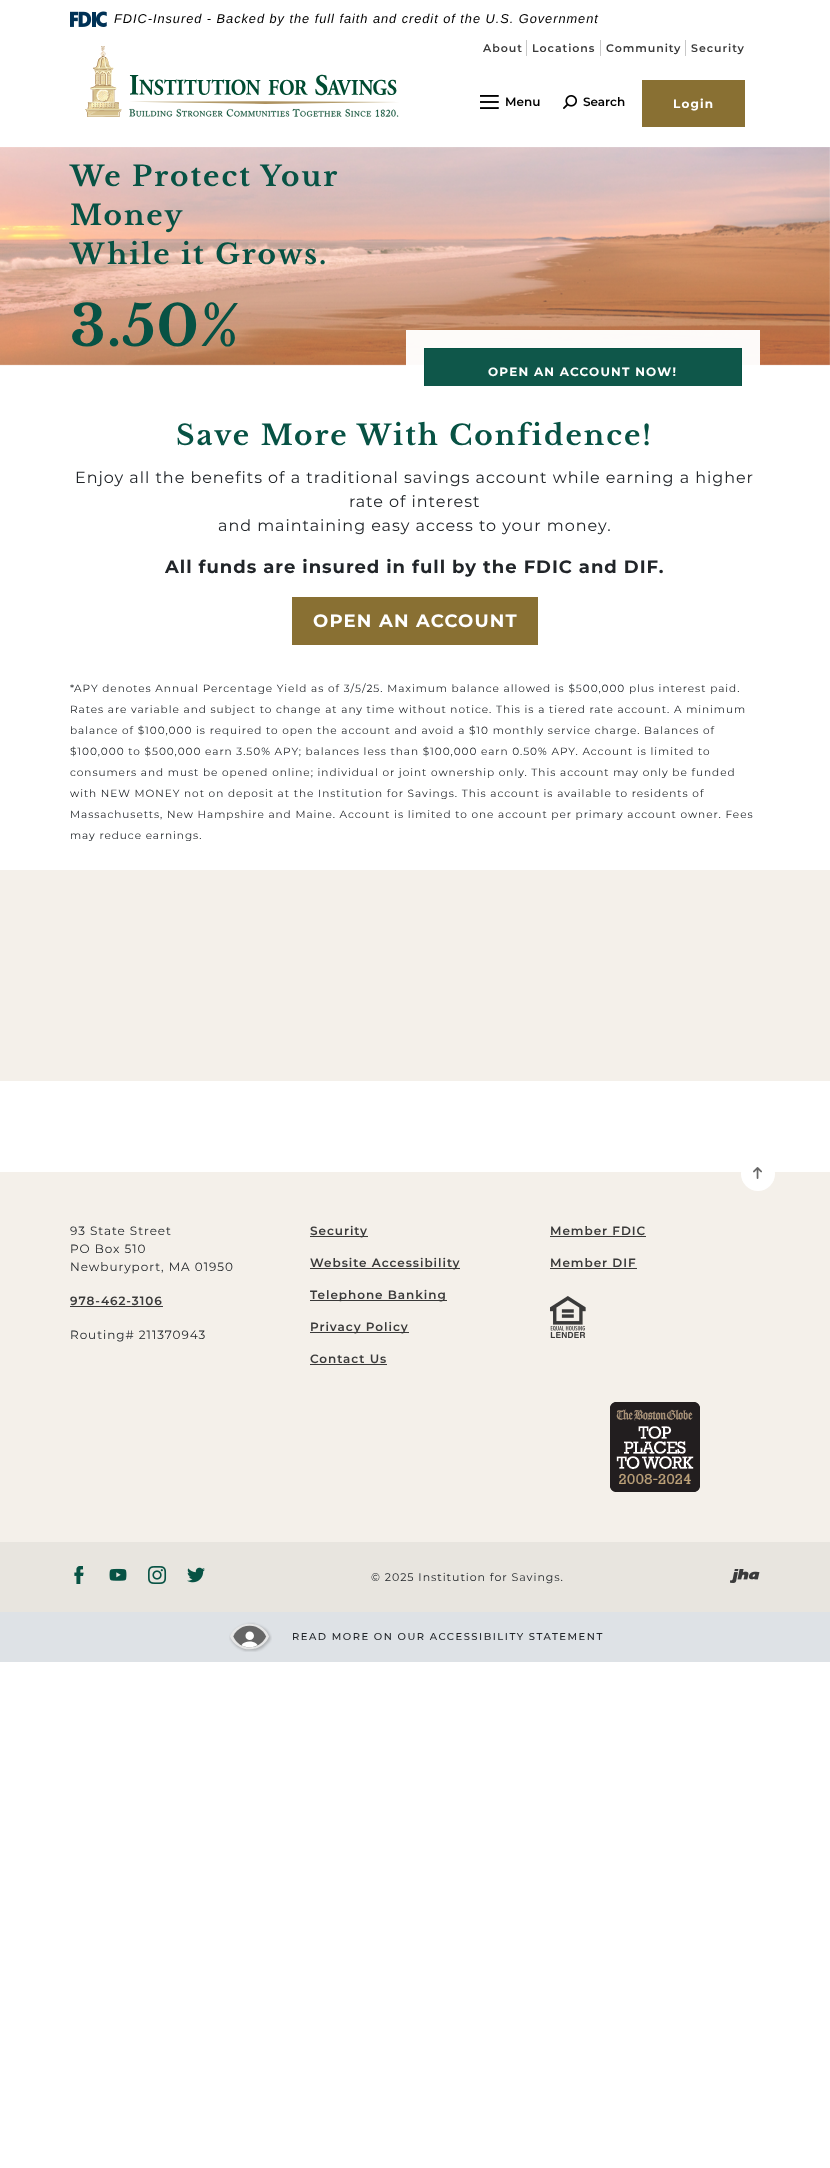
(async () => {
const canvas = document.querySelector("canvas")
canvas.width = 830
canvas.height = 2168
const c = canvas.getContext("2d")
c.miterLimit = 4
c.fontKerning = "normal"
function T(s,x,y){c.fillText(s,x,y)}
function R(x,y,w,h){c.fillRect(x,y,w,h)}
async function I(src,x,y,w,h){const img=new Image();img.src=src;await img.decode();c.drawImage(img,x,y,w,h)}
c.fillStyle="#fff"
R(0,0,830,2168)
await I("1.png",70,11,37,16)
c.letterSpacing="0.96px"
c.font="italic 12.8px Liberation Sans"
c.fillStyle="#000"
T("FDIC-Insured - Backed by the full faith and credit of the U.S. Government",114,23)
await I("2.png",85,46,314,71)
c.font="600 11px Montserrat"
c.fillStyle="#3a3a3a"
T("About",483,52)
c.fillStyle="#c8c8c8"
R(526,40,1,16)
c.fillStyle="#3a3a3a"
T("Locations",532,52)
c.fillStyle="#c8c8c8"
R(600,40,1,16)
c.fillStyle="#3a3a3a"
T("Community",606,52)
c.fillStyle="#c8c8c8"
R(685,40,1,16)
c.fillStyle="#3a3a3a"
T("Security",691,52)
await I("3.png",480,95,19,14)
c.letterSpacing="0px"
c.font="600 12px Montserrat"
c.fillStyle="#000"
T("Menu",505,106)
await I("4.png",563,95,14,14)
T("Search",583,106)
c.fillStyle="#897033"
R(642,80,103,47)
c.letterSpacing="1.2px"
c.font="bold 12px Montserrat"
c.fillStyle="#fff"
T("Login",673,108)
await I("5.png",0,147,830,219)
c.letterSpacing="2px"
c.font="bold 28px Libre Baskerville"
c.fillStyle="#075244"
T("We Protect Your",70,186)
T("Money",70,225)
T("While it Grows.",70,264)
c.letterSpacing="0.96px"
c.font="bold 56px Libre Baskerville"
T("3.50%",70,346)
c.fillStyle="#fffffff7"
R(406,330,354,36)
c.fillStyle="#075244f7"
R(425,349,316,37)
c.save()
c.beginPath()
c.rect(0,147,830,239)
c.clip()
c.strokeStyle="#075244"
c.strokeRect(424.5,348.5,317,46)
c.restore()
c.letterSpacing="1.2px"
c.font="bold 12px Montserrat"
c.fillStyle="#fff"
T("OPEN AN ACCOUNT NOW!",488,376)
c.letterSpacing="2px"
c.font="bold 28px Libre Baskerville"
c.fillStyle="#075244"
T("Save More With Confidence!",176,445)
c.letterSpacing="0.96px"
c.font="16px Montserrat"
c.fillStyle="#212529"
T("Enjoy all the benefits of a traditional savings account while earning a higher",75,483)
T("rate of interest",349,507)
T("and maintaining easy access to your money.",218,531)
c.font="bold 18px Montserrat"
T("All funds are insured in full by the FDIC and DIF.",165,573)
c.fillStyle="#897033"
R(292,597,246,48)
c.letterSpacing="1.2px"
c.fillStyle="#fff"
T("OPEN AN ACCOUNT",313,627)
c.letterSpacing="0.96px"
c.font="10.5px Montserrat"
c.fillStyle="#212529"
T("*APY denotes Annual Percentage Yield as of 3/5/25. Maximum balance allowed is $500,000 plus interest paid.",70,692)
T("Rates are variable and subject to change at any time without notice. This is a tiered rate account. A minimum",70,713)
T("balance of $100,000 is required to open the account and avoid a $10 monthly service charge. Balances of",70,734)
T("$100,000 to $500,000 earn 3.50% APY; balances less than $100,000 earn 0.50% APY. Account is limited to",70,755)
T("consumers and must be opened online; individual or joint ownership only. This account may only be funded",70,776)
T("with NEW MONEY not on deposit at the Institution for Savings. This account is available to residents of",70,797)
T("Massachusetts, New Hampshire and Maine. Account is limited to one account per primary account owner. Fees",70,818)
T("may reduce earnings.",70,839)
c.fillStyle="#f4f0ea"
R(0,870,830,211)
R(0,1172,830,370)
c.fillStyle="#fff"
c.beginPath()
c.arc(758,1174,17,0,7)
c.fill()
await I("6.png",753,1167,9,12)
c.font="12px Montserrat"
c.fillStyle="#212529"
T("93 State Street",70,1235)
T("PO Box 510",70,1253)
T("Newburyport, MA 01950",70,1271)
c.font="600 12px Montserrat"
c.fillStyle="#3a3a3a"
T("978-462-3106",70,1305)
R(70,1306,93,1)
c.font="12px Montserrat"
c.fillStyle="#212529"
T("Routing# 211370943",70,1339)
c.fillStyle="#3a3a3a"
R(310,1236,58,1)
c.font="600 12px Montserrat"
T("Security",310,1235)
R(310,1268,150,1)
T("Website Accessibility",310,1267)
R(310,1300,137,1)
T("Telephone Banking",310,1299)
R(310,1332,99,1)
T("Privacy Policy",310,1331)
T("Contact Us",310,1363)
R(310,1364,77,1)
T("Member FDIC",550,1235)
R(550,1236,96,1)
T("Member DIF",550,1267)
R(550,1268,87,1)
await I("7.png",550,1296,36,42)
await I("8.png",610,1402,90,90)
c.fillStyle="#e8e5df"
R(0,1542,830,70)
await I("9.png",74,1566,10,18)
await I("10.png",109,1568,18,13)
await I("11.png",148,1566,19,18)
await I("12.png",187,1567,18,16)
c.font="11px Montserrat"
c.fillStyle="#212529"
T("© 2025 Institution for Savings.",371,1581)
await I("13.png",730,1569,30,14)
c.fillStyle="#dee2e6"
R(0,1612,830,50)
await I("14.png",229,1622,43,30)
c.letterSpacing="1.5px"
c.font="500 10px Montserrat"
c.fillStyle="#212529"
T("READ MORE ON OUR ACCESSIBILITY STATEMENT",292,1640)
})()
